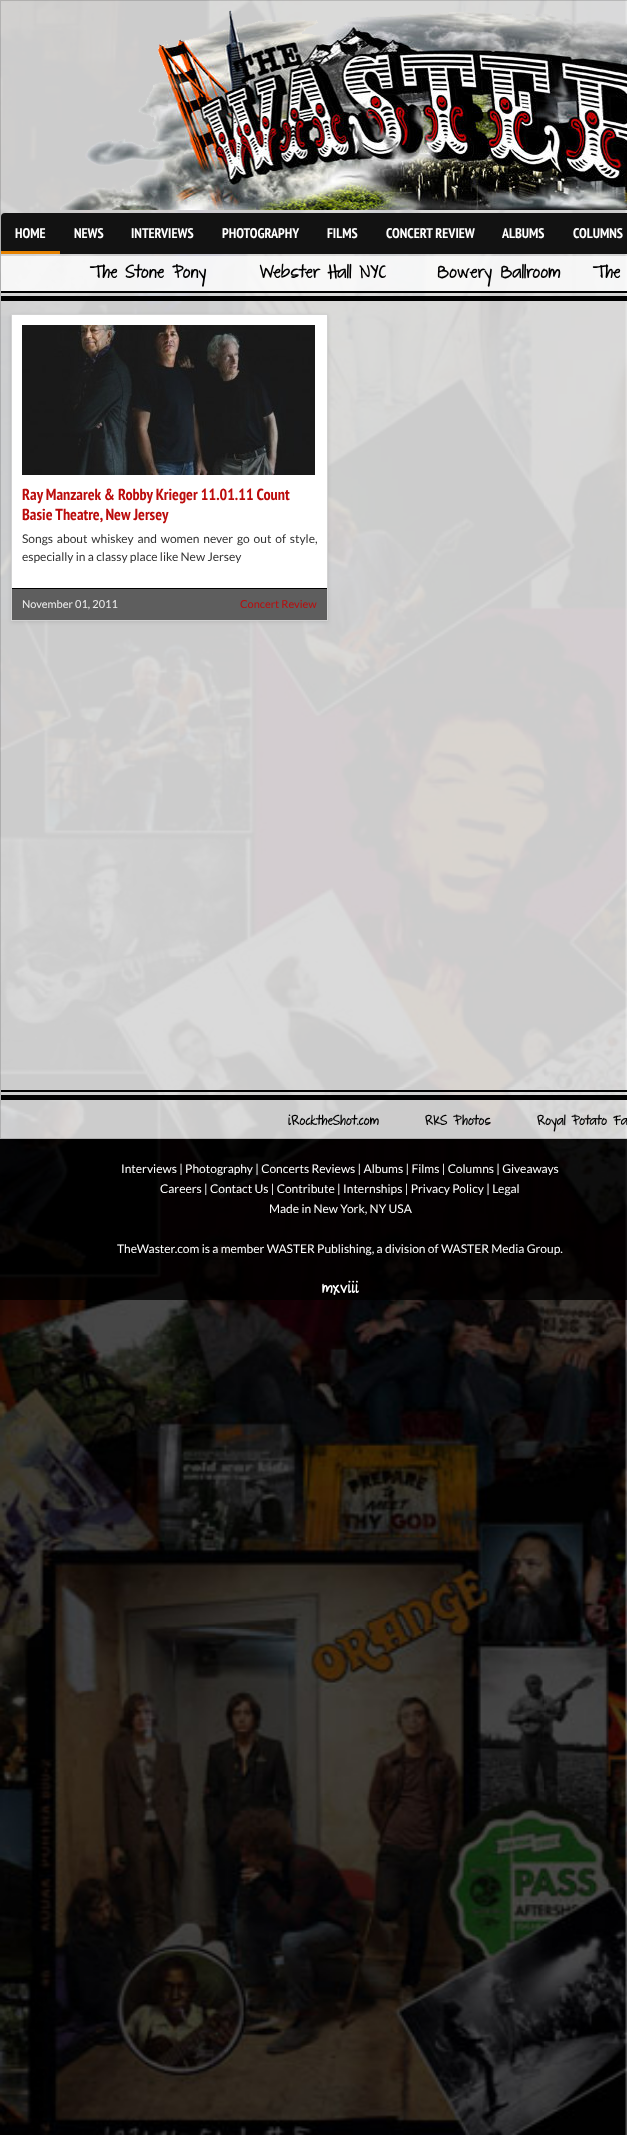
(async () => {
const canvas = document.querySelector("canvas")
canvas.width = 627
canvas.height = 2135
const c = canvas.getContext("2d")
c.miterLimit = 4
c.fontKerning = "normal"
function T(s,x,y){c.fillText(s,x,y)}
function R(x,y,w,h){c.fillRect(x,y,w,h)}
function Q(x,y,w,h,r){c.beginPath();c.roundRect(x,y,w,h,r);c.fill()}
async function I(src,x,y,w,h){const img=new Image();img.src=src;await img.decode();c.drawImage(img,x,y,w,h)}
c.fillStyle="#fff"
R(0,0,627,2135)
await I("1.png",0,0,627,2135)
c.fillStyle="#ffffffcc"
R(0,0,627,1139)
c.strokeStyle="#00000026"
c.strokeRect(.5,.5,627,1138)
await I("2.png",60,10,567,200)
c.fillStyle="#121212"
Q(1,213,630,41,4)
c.fillStyle="#e68200"
R(1,251,59,3)
c.font="bold 14px PT Sans Narrow"
c.fillStyle="#fff"
T("HOME",15,238)
T("NEWS",74,238)
T("INTERVIEWS",131,238)
T("PHOTOGRAPHY",222,238)
T("FILMS",327,238)
T("CONCERT REVIEW",386,238)
T("ALBUMS",502,238)
T("COLUMNS",573,238)
c.fillStyle="#ffffffcc"
R(1,256,626,35)
c.font="bold 16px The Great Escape"
c.fillStyle="#000"
T("The Stone Pony",90,278)
T("Webster Hall NYC",260,278)
T("Bowery Ballroom",437,278)
T("The",593,278)
await I("3.png",1,291,626,10)
c.fillStyle="#0000001a"
c.filter="blur(2px)"
c.beginPath()
c.rect(11,315,317,307)
c.fill()
c.filter="none"
c.fillStyle="#fff"
R(12,315,315,273)
c.strokeStyle="#d2d2d2"
c.strokeRect(11.5,314.5,316,306)
await I("4.png",22,325,293,150)
c.font="bold 16px PT Sans Narrow"
c.fillStyle="#bc0c0c"
T("Ray Manzarek & Robby Krieger 11.01.11 Count",22,500)
T("Basie Theatre, New Jersey",22,520)
c.wordSpacing="1.5px"
c.font="12px Lato"
c.fillStyle="#333"
T("Songs about whiskey and women never go out of style,",22,543)
c.wordSpacing="0px"
T("especially in a classy place like New Jersey",22,561)
c.fillStyle="#5e5e5e"
R(12,589,315,31)
c.fillStyle="#000"
R(12,588,315,1)
c.font="11px Lato"
c.fillStyle="#eee"
T("November 01, 2011",22,608)
c.fillStyle="#bc0c0c"
T("Concert Review",240,608)
await I("5.png",1,1090,626,10)
c.font="bold 12px The Great Escape"
c.fillStyle="#000"
T("iRocktheShot.com",288,1125)
T("RKS Photos",425,1125)
T("Royal Potato Fa",537,1125)
c.fillStyle="#000000cc"
R(0,1139,627,161)
c.font="12px Lato"
c.fillStyle="#fff"
T("Interviews | Photography | Concerts Reviews | Albums | Films | Columns | Giveaways",121,1173)
T("Careers | Contact Us | Contribute | Internships | Privacy Policy | Legal",160,1193)
T("Made in New York, NY USA",269,1213)
T("TheWaster.com is a member WASTER Publishing, a division of WASTER Media Group.",117,1253)
c.font="bold 14px The Great Escape"
T("mxviii",322,1293)
})()
